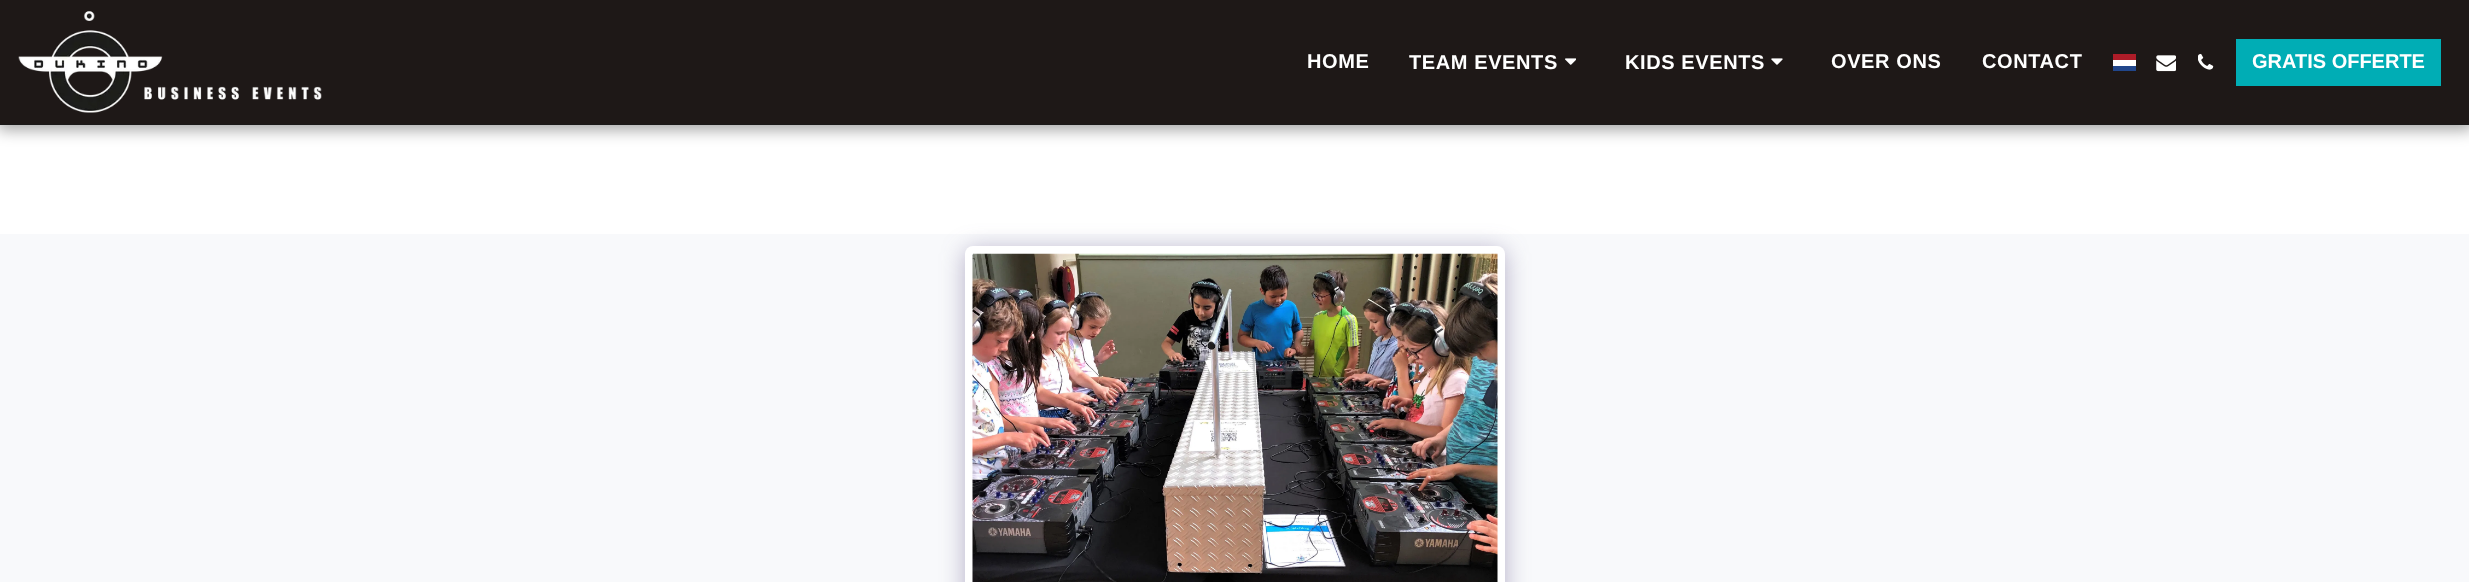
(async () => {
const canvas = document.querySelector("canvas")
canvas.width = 2469
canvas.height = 582
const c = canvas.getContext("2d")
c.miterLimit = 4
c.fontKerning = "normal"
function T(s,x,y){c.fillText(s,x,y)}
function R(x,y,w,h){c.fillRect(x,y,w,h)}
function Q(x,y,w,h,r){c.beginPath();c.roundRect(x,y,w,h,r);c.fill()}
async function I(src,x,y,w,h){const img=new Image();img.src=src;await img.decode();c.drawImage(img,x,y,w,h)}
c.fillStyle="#f8f9fb"
R(0,0,2469,582)
c.fillStyle="#fff"
R(0,125,2469,109)
c.fillStyle="#00000059"
c.filter="blur(7.5px)"
c.beginPath()
c.rect(-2,0,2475,130)
c.fill()
c.filter="none"
c.fillStyle="#1e1817"
R(0,0,2469,124)
c.fillStyle="#1b1919"
R(0,124,2469,1)
await I("1.png",18,11,304,102)
c.letterSpacing="0.6px"
c.font="bold 20px Liberation Sans"
c.fillStyle="#fff"
T("HOME",1307,68)
T("TEAM EVENTS",1409,69)
await I("2.png",1565,58,11,7)
T("KIDS EVENTS",1625,69)
await I("3.png",1771,58,12,7)
T("OVER ONS",1831,68)
T("CONTACT",1982,68)
c.fillStyle="#21468b"
R(2113,66,23,5)
c.fillStyle="#fff"
R(2113,60,23,6)
c.fillStyle="#ae1c28"
R(2113,54,23,6)
await I("4.png",2156,55,20,17)
await I("5.png",2198,53,16,17)
c.fillStyle="#00adb5"
R(2236,39,205,47)
c.letterSpacing="0px"
c.fillStyle="#fff"
T("GRATIS OFFERTE",2252,68)
c.fillStyle="#4d3f7a66"
c.filter="blur(12.5px)"
c.beginPath()
c.roundRect(965,250,540,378,8)
c.fill()
c.filter="none"
c.fillStyle="#fff"
Q(965,246,540,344,8)
await I("6.png",972,253,526,329)
})()
